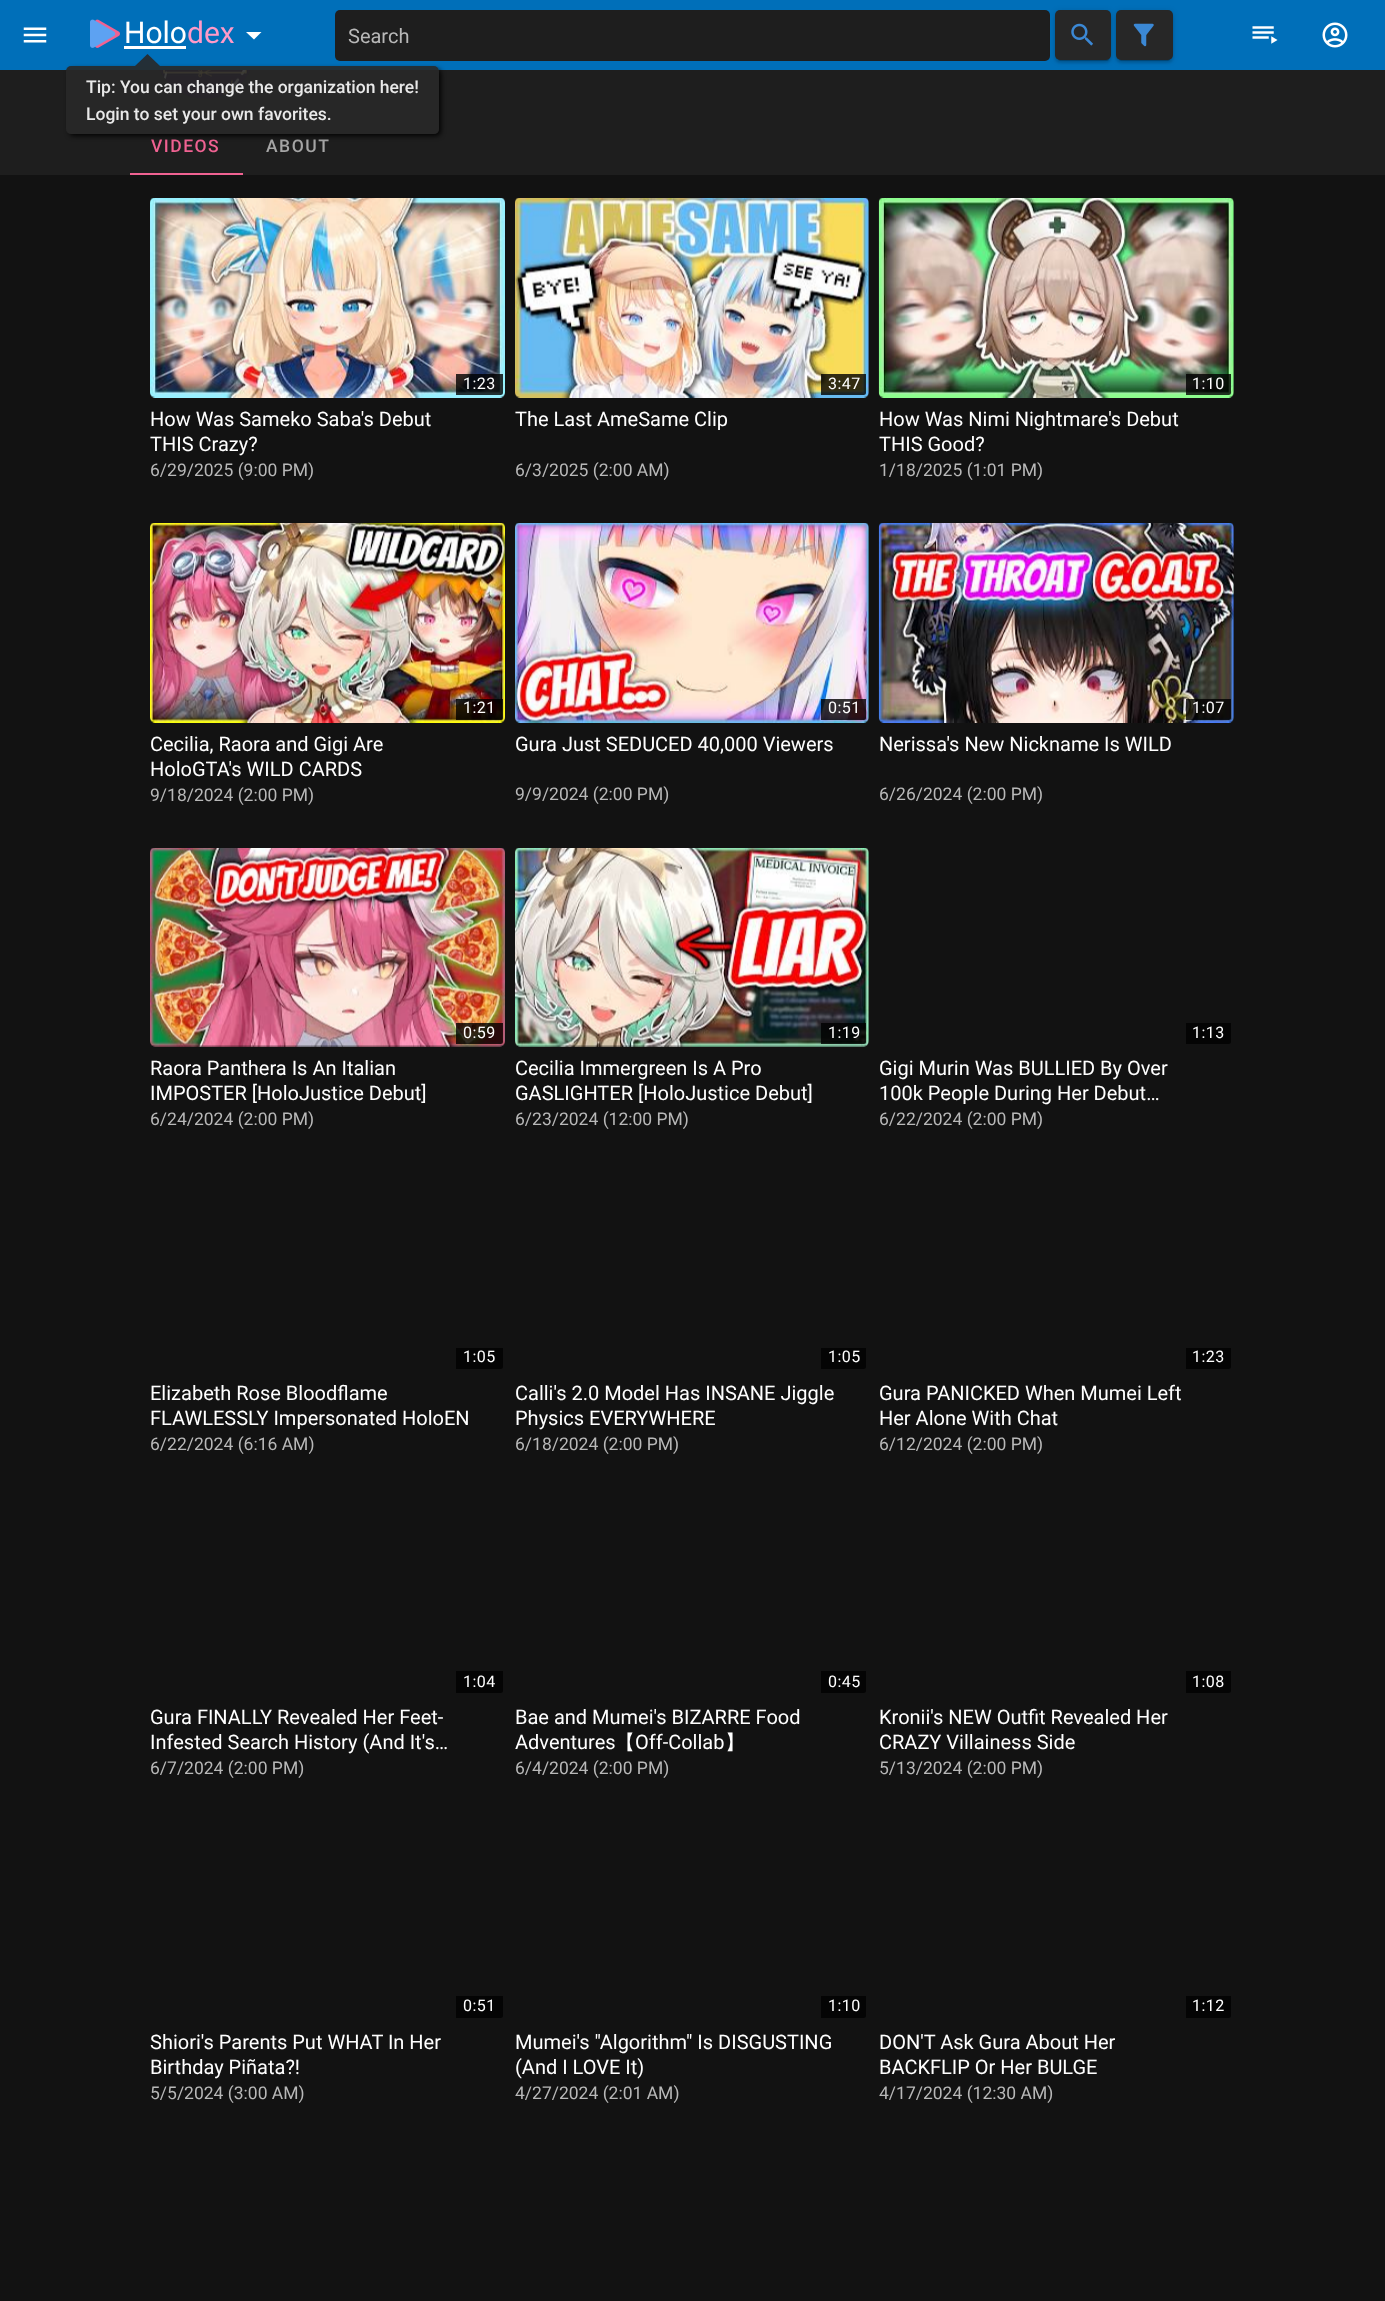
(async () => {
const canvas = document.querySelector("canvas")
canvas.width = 1385
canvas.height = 2301
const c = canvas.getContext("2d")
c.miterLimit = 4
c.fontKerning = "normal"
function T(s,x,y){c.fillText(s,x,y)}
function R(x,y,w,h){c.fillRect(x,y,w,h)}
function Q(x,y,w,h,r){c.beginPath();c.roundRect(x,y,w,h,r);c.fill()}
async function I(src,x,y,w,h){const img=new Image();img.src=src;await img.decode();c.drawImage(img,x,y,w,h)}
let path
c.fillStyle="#121212"
R(0,0,1385,2301)
c.fillStyle="#006fb9"
R(0,0,1385,70)
await I("1.png",23,27,24,16)
await I("2.png",90,19,30,29)
c.font="30px Roboto"
c.fillStyle="#fff"
T("Holo",124,43)
R(124,46,62,3)
c.fillStyle="#ff9ac8"
T("dex",187,43)
c.fillStyle="#fff"
path = new Path2D("M246 32l8 7.5l7.5-7.5z")
c.fill(path)
c.fillStyle="#1e1e1e"
Q(335,10,715,51,5)
c.font="20px Roboto"
c.fillStyle="#b8b8b8"
T("Search",348,43)
c.fillStyle="#1e1e1e"
R(0,70,1385,105)
c.fillStyle="#0000001f"
c.filter="blur(3px)"
c.beginPath()
c.roundRect(1055,11,56,50,5)
c.fill()
c.filter="none"
c.fillStyle="#00000024"
c.filter="blur(1px)"
c.beginPath()
c.roundRect(1055,13,56,50,5)
c.fill()
c.filter="none"
c.fillStyle="#00000033"
c.filter="blur(0.5px)"
c.beginPath()
c.roundRect(1058,16,51,45,2.5)
c.fill()
c.filter="none"
c.fillStyle="#272727"
Q(1055,10,56,50,5)
await I("3.png",1071,23,22,23)
c.fillStyle="#0000001f"
c.filter="blur(3px)"
c.beginPath()
c.roundRect(1116,11,57,50,5)
c.fill()
c.filter="none"
c.fillStyle="#00000024"
c.filter="blur(1px)"
c.beginPath()
c.roundRect(1116,13,57,50,5)
c.fill()
c.filter="none"
c.fillStyle="#00000033"
c.filter="blur(0.5px)"
c.beginPath()
c.roundRect(1119,16,51,45,2.5)
c.fill()
c.filter="none"
c.fillStyle="#272727"
Q(1116,10,57,50,5)
await I("4.png",1133,23,21,24)
await I("5.png",1252,26,26,18)
await I("6.png",1322,22,26,26)
await I("7.png",159,70,92,29)
c.letterSpacing="1.5px"
c.font="500 17.5px Roboto"
c.fillStyle="#f06292"
T("VIDEOS",151,152)
c.fillStyle="#a5a5a5"
T("ABOUT",266,152)
c.fillStyle="#f06292"
R(130,173,113,2)
await I("8.png",150,198,355,200)
c.fillStyle="#000000cc"
c.beginPath()
c.roundRect(456,374,47,21,[0,0,2.5,0])
c.fill()
c.letterSpacing="0.5px"
c.font="16px Roboto"
c.fillStyle="#fff"
T("1:23",463,389)
c.letterSpacing="0px"
c.font="20px Roboto"
T("How Was Sameko Saba's Debut",150,426)
T("THIS Crazy?",150,451)
c.font="17.5px Roboto"
c.fillStyle="#b8b8b8"
T("6/29/2025 (9:00 PM)",150,476)
await I("9.png",515,198,354,200)
c.fillStyle="#000000cc"
c.beginPath()
c.roundRect(821,374,45,21,[0,0,2.5,0])
c.fill()
c.letterSpacing="0.5px"
c.font="16px Roboto"
c.fillStyle="#fff"
T("3:47",828,389)
c.letterSpacing="0px"
c.font="20px Roboto"
T("The Last AmeSame Clip",515,426)
c.font="17.5px Roboto"
c.fillStyle="#b8b8b8"
T("6/3/2025 (2:00 AM)",515,476)
await I("10.png",878,198,356,200)
c.fillStyle="#000000cc"
c.beginPath()
c.roundRect(1186,374,45,21,[0,0,2.5,0])
c.fill()
c.letterSpacing="0.5px"
c.font="16px Roboto"
c.fillStyle="#fff"
T("1:10",1192,389)
c.letterSpacing="0px"
c.font="20px Roboto"
T("How Was Nimi Nightmare's Debut",879,426)
T("THIS Good?",879,451)
c.font="17.5px Roboto"
c.fillStyle="#b8b8b8"
T("1/18/2025 (1:01 PM)",879,476)
await I("11.png",150,523,355,200)
c.fillStyle="#000000cc"
c.beginPath()
c.roundRect(456,699,47,21,[0,0,2.5,0])
c.fill()
c.letterSpacing="0.5px"
c.font="16px Roboto"
c.fillStyle="#fff"
T("1:21",463,713)
c.letterSpacing="0px"
c.font="20px Roboto"
T("Cecilia, Raora and Gigi Are",150,751)
T("HoloGTA's WILD CARDS",150,776)
c.font="17.5px Roboto"
c.fillStyle="#b8b8b8"
T("9/18/2024 (2:00 PM)",150,801)
await I("12.png",515,523,354,200)
c.fillStyle="#000000cc"
c.beginPath()
c.roundRect(821,699,45,21,[0,0,2.5,0])
c.fill()
c.letterSpacing="0.5px"
c.font="16px Roboto"
c.fillStyle="#fff"
T("0:51",828,713)
c.letterSpacing="0px"
c.font="20px Roboto"
T("Gura Just SEDUCED 40,000 Viewers",515,751)
c.font="17.5px Roboto"
c.fillStyle="#b8b8b8"
T("9/9/2024 (2:00 PM)",515,800)
await I("13.png",878,523,356,200)
c.fillStyle="#000000cc"
c.beginPath()
c.roundRect(1186,699,45,21,[0,0,2.5,0])
c.fill()
c.letterSpacing="0.5px"
c.font="16px Roboto"
c.fillStyle="#fff"
T("1:07",1192,713)
c.letterSpacing="0px"
c.font="20px Roboto"
T("Nerissa's New Nickname Is WILD",879,751)
c.font="17.5px Roboto"
c.fillStyle="#b8b8b8"
T("6/26/2024 (2:00 PM)",879,800)
await I("14.png",150,848,355,199)
c.fillStyle="#000000cc"
c.beginPath()
c.roundRect(456,1023,47,21,[0,0,2.5,0])
c.fill()
c.letterSpacing="0.5px"
c.font="16px Roboto"
c.fillStyle="#fff"
T("0:59",463,1038)
c.letterSpacing="0px"
c.font="20px Roboto"
T("Raora Panthera Is An Italian",150,1075)
T("IMPOSTER [HoloJustice Debut]",150,1100)
c.font="17.5px Roboto"
c.fillStyle="#b8b8b8"
T("6/24/2024 (2:00 PM)",150,1125)
await I("15.png",515,848,354,199)
c.fillStyle="#000000cc"
c.beginPath()
c.roundRect(821,1023,45,21,[0,0,2.5,0])
c.fill()
c.letterSpacing="0.5px"
c.font="16px Roboto"
c.fillStyle="#fff"
T("1:19",828,1038)
c.letterSpacing="0px"
c.font="20px Roboto"
T("Cecilia Immergreen Is A Pro",515,1075)
T("GASLIGHTER [HoloJustice Debut]",515,1100)
c.font="17.5px Roboto"
c.fillStyle="#b8b8b8"
T("6/23/2024 (12:00 PM)",515,1125)
c.fillStyle="#040404"
c.beginPath()
c.roundRect(1186,1023,45,21,[0,0,2.5,0])
c.fill()
c.letterSpacing="0.5px"
c.font="16px Roboto"
c.fillStyle="#fff"
T("1:13",1192,1038)
c.letterSpacing="0px"
c.font="20px Roboto"
T("Gigi Murin Was BULLIED By Over",879,1075)
T("100k People During Her Debut…",879,1100)
c.font="17.5px Roboto"
c.fillStyle="#b8b8b8"
T("6/22/2024 (2:00 PM)",879,1125)
c.fillStyle="#040404"
c.beginPath()
c.roundRect(456,1348,47,21,[0,0,2.5,0])
c.fill()
c.letterSpacing="0.5px"
c.font="16px Roboto"
c.fillStyle="#fff"
T("1:05",463,1362)
c.letterSpacing="0px"
c.font="20px Roboto"
T("Elizabeth Rose Bloodflame",150,1400)
T("FLAWLESSLY Impersonated HoloEN",150,1425)
c.font="17.5px Roboto"
c.fillStyle="#b8b8b8"
T("6/22/2024 (6:16 AM)",150,1450)
c.fillStyle="#040404"
c.beginPath()
c.roundRect(821,1348,45,21,[0,0,2.5,0])
c.fill()
c.letterSpacing="0.5px"
c.font="16px Roboto"
c.fillStyle="#fff"
T("1:05",828,1362)
c.letterSpacing="0px"
c.font="20px Roboto"
T("Calli's 2.0 Model Has INSANE Jiggle",515,1400)
T("Physics EVERYWHERE",515,1425)
c.font="17.5px Roboto"
c.fillStyle="#b8b8b8"
T("6/18/2024 (2:00 PM)",515,1450)
c.fillStyle="#040404"
c.beginPath()
c.roundRect(1186,1348,45,21,[0,0,2.5,0])
c.fill()
c.letterSpacing="0.5px"
c.font="16px Roboto"
c.fillStyle="#fff"
T("1:23",1192,1362)
c.letterSpacing="0px"
c.font="20px Roboto"
T("Gura PANICKED When Mumei Left",879,1400)
T("Her Alone With Chat",879,1425)
c.font="17.5px Roboto"
c.fillStyle="#b8b8b8"
T("6/12/2024 (2:00 PM)",879,1450)
c.fillStyle="#040404"
c.beginPath()
c.roundRect(456,1671,47,22,[0,0,2.5,0])
c.fill()
c.letterSpacing="0.5px"
c.font="16px Roboto"
c.fillStyle="#fff"
T("1:04",463,1687)
c.letterSpacing="0px"
c.font="20px Roboto"
T("Gura FINALLY Revealed Her Feet-",150,1724)
T("Infested Search History (And It's…",150,1749)
c.font="17.5px Roboto"
c.fillStyle="#b8b8b8"
T("6/7/2024 (2:00 PM)",150,1774)
c.fillStyle="#040404"
c.beginPath()
c.roundRect(821,1671,45,22,[0,0,2.5,0])
c.fill()
c.letterSpacing="0.5px"
c.font="16px Roboto"
c.fillStyle="#fff"
T("0:45",828,1687)
c.letterSpacing="0px"
c.font="20px Roboto"
T("Bae and Mumei's BIZARRE Food",515,1724)
T("Adventures",515,1749)
c.font="500 20px WenQuanYi Zen Hei"
T("【",615,1749)
c.font="20px Roboto"
T("Off-Collab",635,1749)
c.font="500 20px WenQuanYi Zen Hei"
T("】",725,1749)
c.font="17.5px Roboto"
c.fillStyle="#b8b8b8"
T("6/4/2024 (2:00 PM)",515,1774)
c.fillStyle="#040404"
c.beginPath()
c.roundRect(1186,1671,45,22,[0,0,2.5,0])
c.fill()
c.letterSpacing="0.5px"
c.font="16px Roboto"
c.fillStyle="#fff"
T("1:08",1192,1687)
c.letterSpacing="0px"
c.font="20px Roboto"
T("Kronii's NEW Outfit Revealed Her",879,1724)
T("CRAZY Villainess Side",879,1749)
c.font="17.5px Roboto"
c.fillStyle="#b8b8b8"
T("5/13/2024 (2:00 PM)",879,1774)
c.fillStyle="#040404"
c.beginPath()
c.roundRect(456,1996,47,22,[0,0,2.5,0])
c.fill()
c.letterSpacing="0.5px"
c.font="16px Roboto"
c.fillStyle="#fff"
T("0:51",463,2011)
c.letterSpacing="0px"
c.font="20px Roboto"
T("Shiori's Parents Put WHAT In Her",150,2049)
T("Birthday Piñata?!",150,2074)
c.font="17.5px Roboto"
c.fillStyle="#b8b8b8"
T("5/5/2024 (3:00 AM)",150,2099)
c.fillStyle="#040404"
c.beginPath()
c.roundRect(821,1996,45,22,[0,0,2.5,0])
c.fill()
c.letterSpacing="0.5px"
c.font="16px Roboto"
c.fillStyle="#fff"
T("1:10",828,2011)
c.letterSpacing="0px"
c.font="20px Roboto"
T("Mumei's \"Algorithm\" Is DISGUSTING",515,2049)
T("(And I LOVE It)",515,2074)
c.font="17.5px Roboto"
c.fillStyle="#b8b8b8"
T("4/27/2024 (2:01 AM)",515,2099)
c.fillStyle="#040404"
c.beginPath()
c.roundRect(1186,1996,45,22,[0,0,2.5,0])
c.fill()
c.letterSpacing="0.5px"
c.font="16px Roboto"
c.fillStyle="#fff"
T("1:12",1192,2011)
c.letterSpacing="0px"
c.font="20px Roboto"
T("DON'T Ask Gura About Her",879,2049)
T("BACKFLIP Or Her BULGE",879,2074)
c.font="17.5px Roboto"
c.fillStyle="#b8b8b8"
T("4/17/2024 (12:30 AM)",879,2099)
c.save()
path = new Path2D("M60 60h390v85h-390zm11 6h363c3 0 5 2 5 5v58c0 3-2 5-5 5h-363c-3 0-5-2-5-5v-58c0-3 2-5 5-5z")
c.clip(path,"evenodd")
c.fillStyle="#000000e6"
c.filter="blur(2.5px)"
c.beginPath()
c.roundRect(69,69,372,67,5)
c.fill()
c.filter="none"
c.restore()
c.fillStyle="#282828e6"
Q(66,66,373,68,5)
c.fillStyle="#242f37"
path = new Path2D("M160 66h-25l12.5-12z")
c.fill(path)
c.font="500 17.5px Roboto"
c.fillStyle="#e9e9e9"
T("Tip: You can change the organization here!",86,93)
T("Login to set your own favorites.",86,120)
})()
